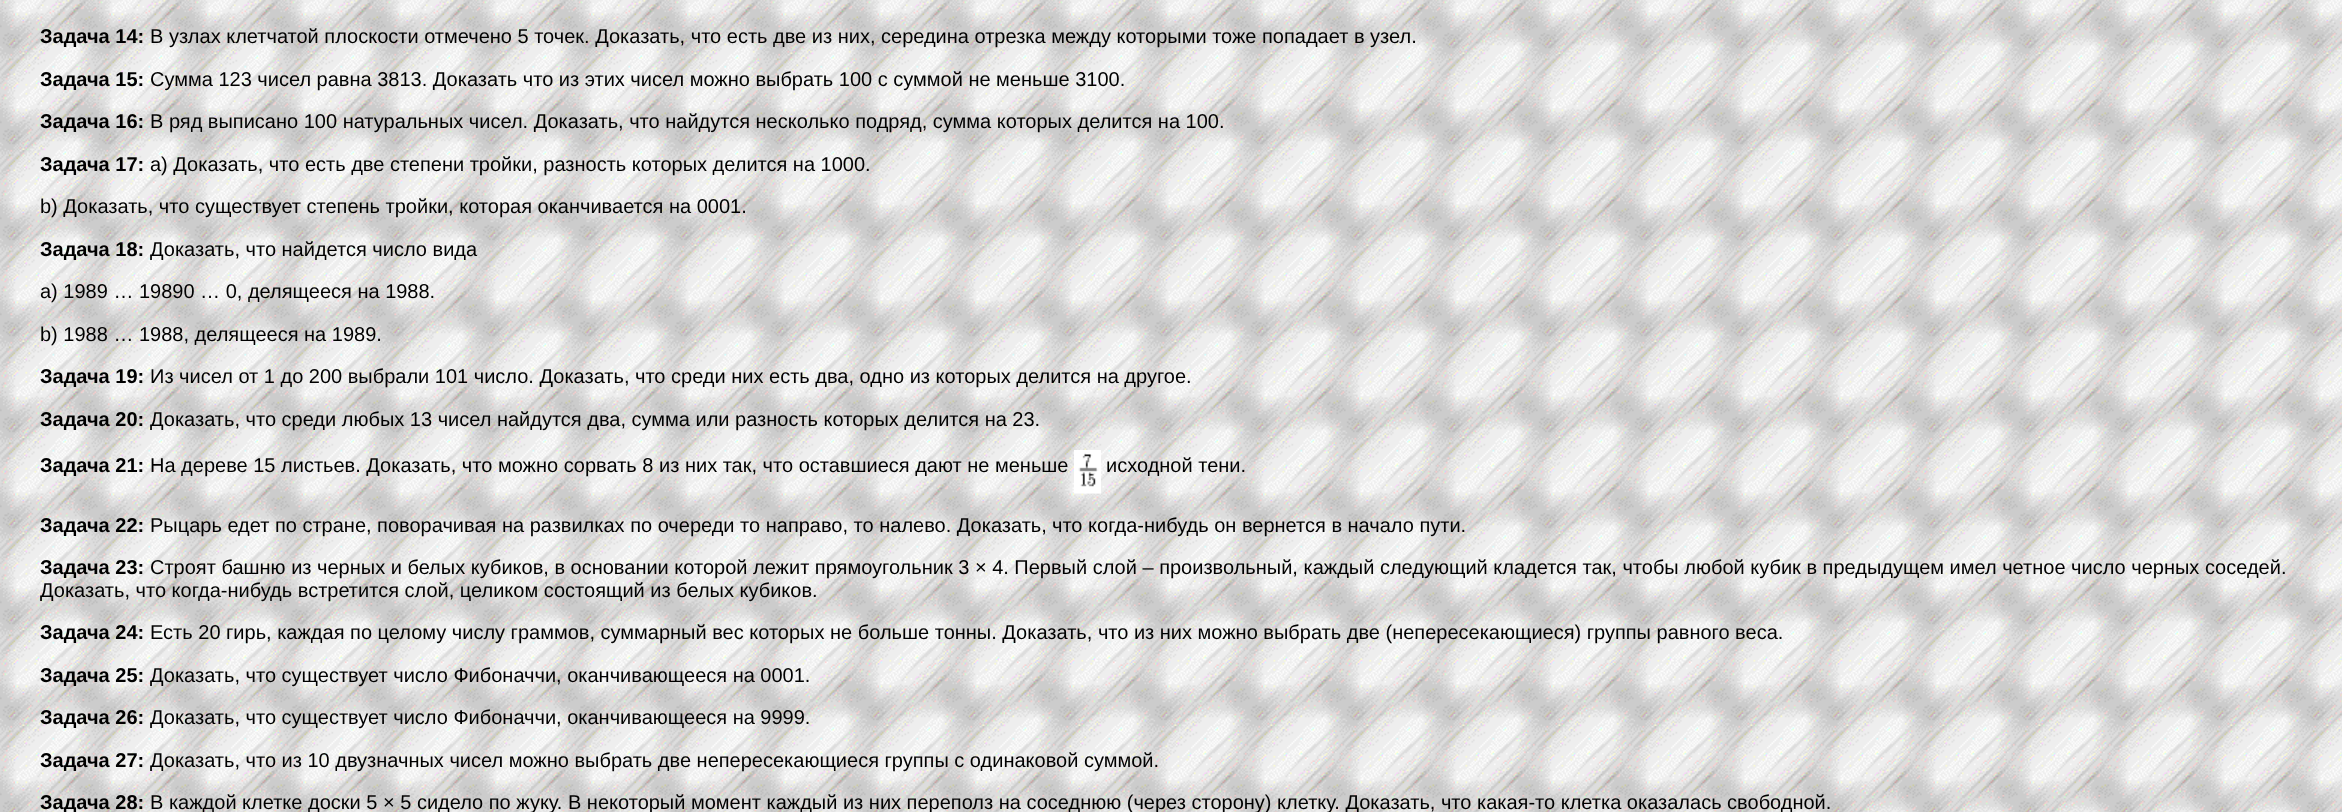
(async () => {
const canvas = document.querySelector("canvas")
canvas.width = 2342
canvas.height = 812
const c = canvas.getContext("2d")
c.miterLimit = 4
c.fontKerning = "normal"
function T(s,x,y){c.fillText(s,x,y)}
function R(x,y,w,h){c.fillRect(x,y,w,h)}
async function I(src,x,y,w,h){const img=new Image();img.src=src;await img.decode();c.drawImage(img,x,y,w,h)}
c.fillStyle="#fff"
R(0,0,2342,812)
await I("1.png",0,0,2342,812)
c.font="bold 20px Liberation Sans"
c.fillStyle="#000"
T("Задача 14:",40,43)
c.font="20px Liberation Sans"
T("В узлах клетчатой плоскости отмечено 5 точек. Доказать, что есть две из них, середина отрезка между которыми тоже попадает в узел.",150,43)
c.font="bold 20px Liberation Sans"
T("Задача 15:",40,86)
c.font="20px Liberation Sans"
T("Сумма 123 чисел равна 3813. Доказать что из этих чисел можно выбрать 100 с суммой не меньше 3100.",150,86)
c.font="bold 20px Liberation Sans"
T("Задача 16:",40,128)
c.font="20px Liberation Sans"
T("В ряд выписано 100 натуральных чисел. Доказать, что найдутся несколько подряд, сумма которых делится на 100.",150,128)
c.font="bold 20px Liberation Sans"
T("Задача 17:",40,171)
c.font="20px Liberation Sans"
T("a) Доказать, что есть две степени тройки, разность которых делится на 1000.",150,171)
T("b) Доказать, что существует степень тройки, которая оканчивается на 0001.",40,213)
c.font="bold 20px Liberation Sans"
T("Задача 18:",40,256)
c.font="20px Liberation Sans"
T("Доказать, что найдется число вида",150,256)
T("a) 1989 … 19890 … 0, делящееся на 1988.",40,298)
T("b) 1988 … 1988, делящееся на 1989.",40,341)
c.font="bold 20px Liberation Sans"
T("Задача 19:",40,383)
c.font="20px Liberation Sans"
T("Из чисел от 1 до 200 выбрали 101 число. Доказать, что среди них есть два, одно из которых делится на другое.",150,383)
c.font="bold 20px Liberation Sans"
T("Задача 20:",40,426)
c.font="20px Liberation Sans"
T("Доказать, что среди любых 13 чисел найдутся два, сумма или разность которых делится на 23.",150,426)
c.font="bold 20px Liberation Sans"
T("Задача 21:",40,472)
c.font="20px Liberation Sans"
T("На дереве 15 листьев. Доказать, что можно сорвать 8 из них так, что оставшиеся дают не меньше",150,472)
await I("2.png",1074,450,27,44)
T("исходной тени.",1106,472)
c.font="bold 20px Liberation Sans"
T("Задача 22:",40,532)
c.font="20px Liberation Sans"
T("Рыцарь едет по стране, поворачивая на развилках по очереди то направо, то налево. Доказать,",150,532)
T("что когда-нибудь он вернется в начало пути.",1052,532)
c.font="bold 20px Liberation Sans"
T("Задача 23:",40,574)
c.font="20px Liberation Sans"
T("Строят башню из черных и белых кубиков, в основании которой лежит прямоугольник 3 × 4. Первый слой – произвольный, каждый следующий кладется так, чтобы любой кубик в предыдущем имел четное число черных соседей.",150,574)
T("Доказать, что когда-нибудь встретится слой, целиком состоящий из белых кубиков.",40,597)
c.font="bold 20px Liberation Sans"
T("Задача 24:",40,639)
c.font="20px Liberation Sans"
T("Есть 20 гирь, каждая по целому числу граммов, суммарный вес которых не больше тонны. Доказать, что из них можно выбрать две (непересекающиеся) группы равного веса.",150,639)
c.font="bold 20px Liberation Sans"
T("Задача 25:",40,682)
c.font="20px Liberation Sans"
T("Доказать, что существует число Фибоначчи, оканчивающееся на 0001.",150,682)
c.font="bold 20px Liberation Sans"
T("Задача 26:",40,724)
c.font="20px Liberation Sans"
T("Доказать, что существует число Фибоначчи, оканчивающееся на 9999.",150,724)
c.font="bold 20px Liberation Sans"
T("Задача 27:",40,767)
c.font="20px Liberation Sans"
T("Доказать, что из 10 двузначных чисел можно выбрать две непересекающиеся группы с одинаковой суммой.",150,767)
c.font="bold 20px Liberation Sans"
T("Задача 28:",40,809)
c.font="20px Liberation Sans"
T("В каждой клетке доски 5 × 5 сидело по жуку. В некоторый момент каждый из них переполз на соседнюю (через сторону) клетку. Доказать, что какая-то клетка оказалась свободной.",150,809)
})()
